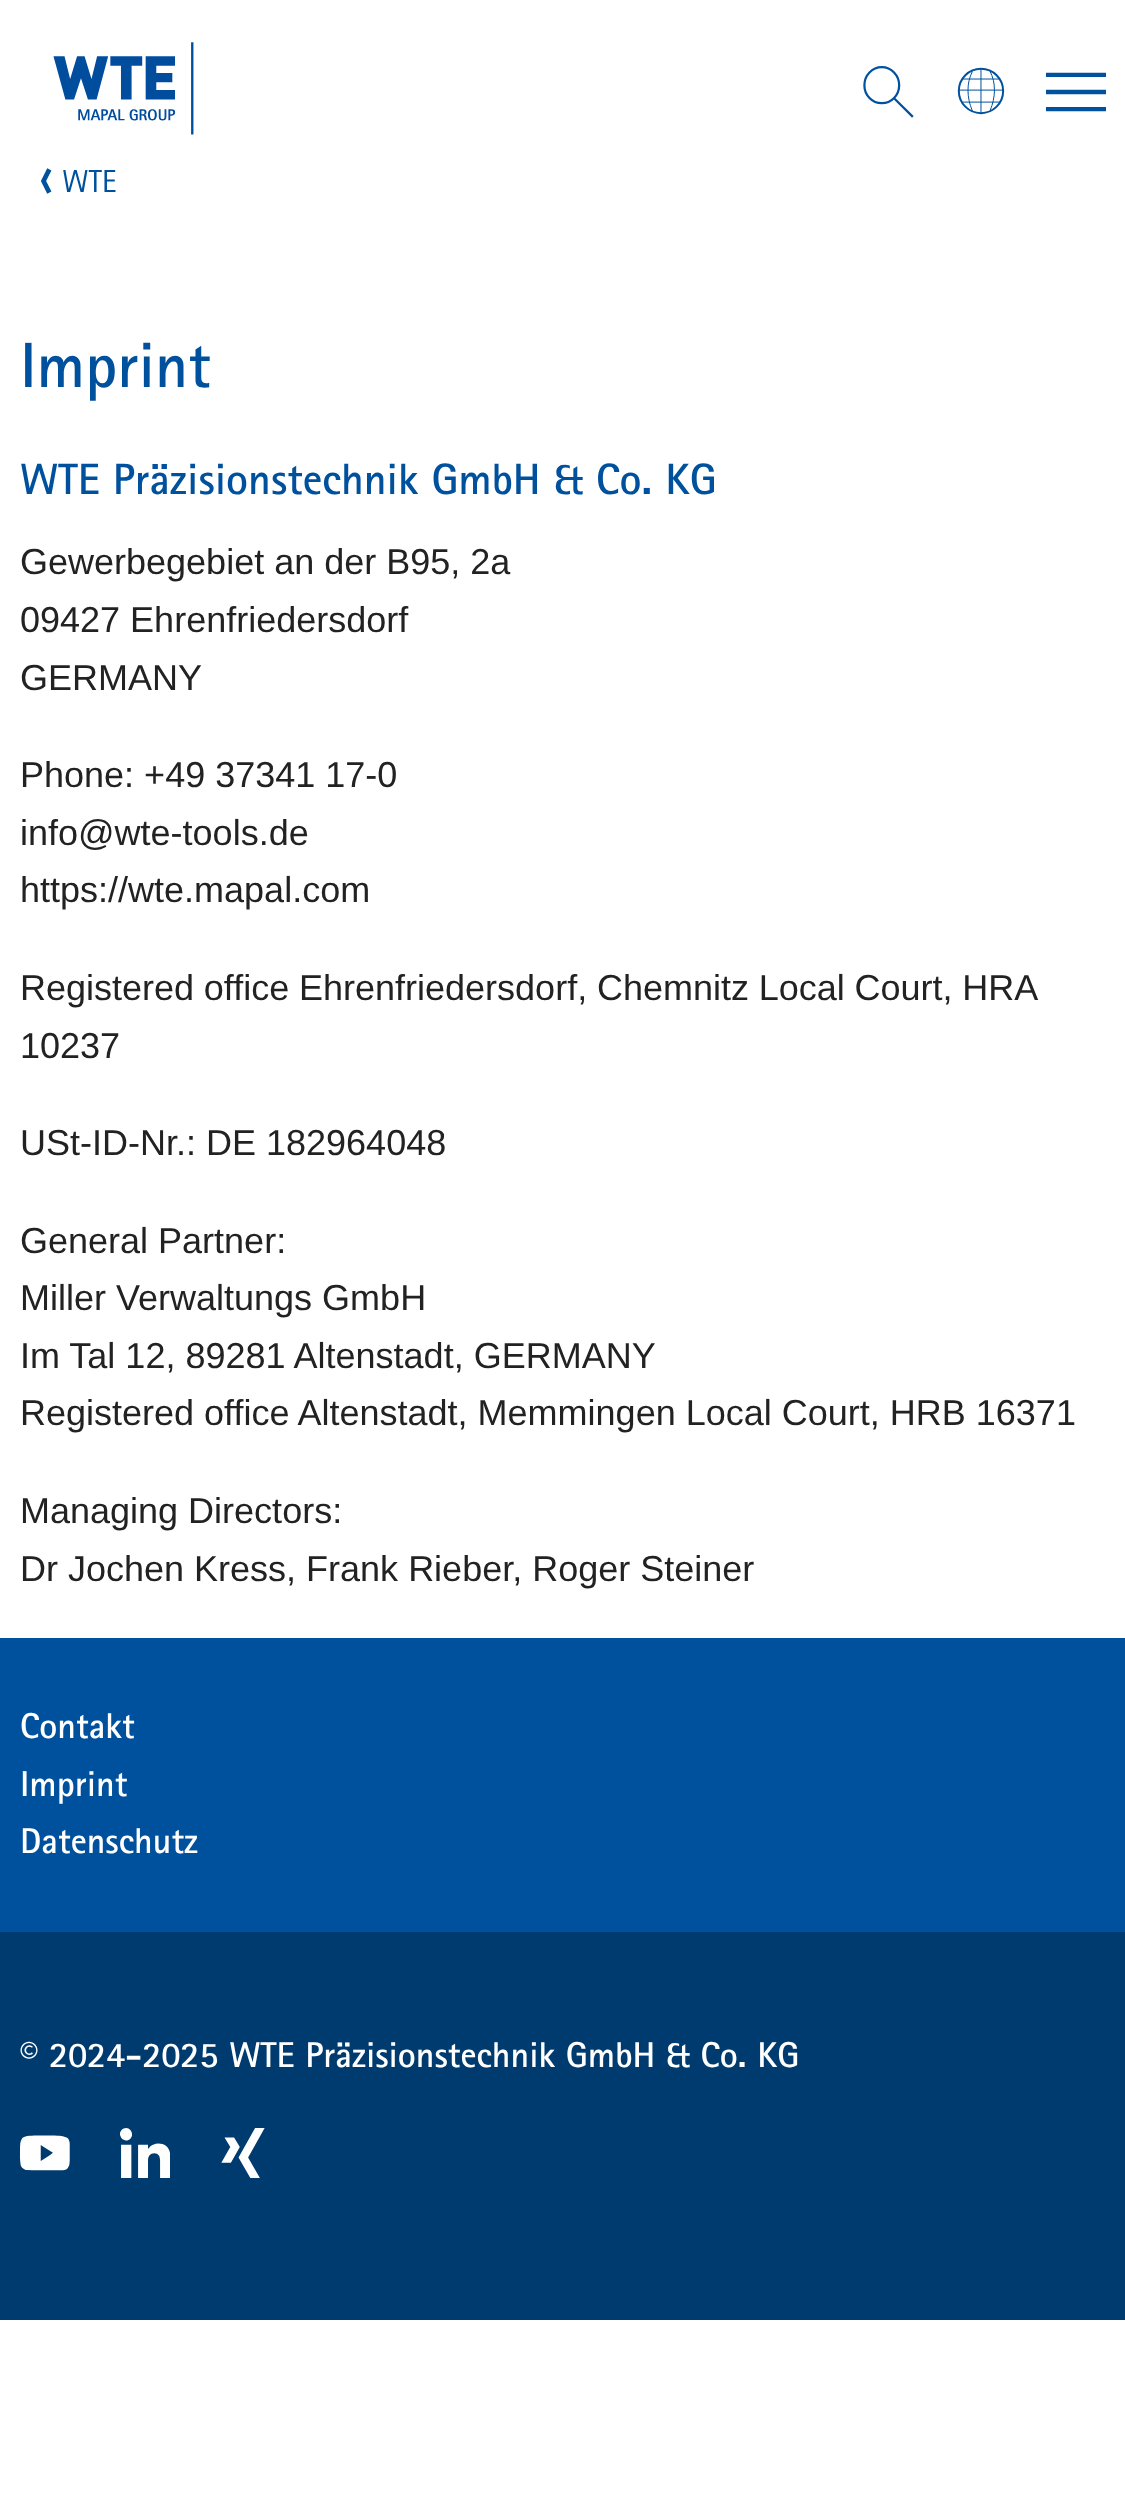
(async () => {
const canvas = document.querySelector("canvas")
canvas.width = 1125
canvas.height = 2502
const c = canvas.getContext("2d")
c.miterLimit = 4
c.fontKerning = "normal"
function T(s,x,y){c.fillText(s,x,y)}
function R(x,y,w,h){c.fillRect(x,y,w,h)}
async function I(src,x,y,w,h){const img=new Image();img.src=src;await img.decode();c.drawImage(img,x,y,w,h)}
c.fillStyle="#fff"
R(0,0,1125,2502)
await I("1.png",53,42,141,93)
await I("2.png",863,66,51,52)
await I("3.png",957,67,48,48)
await I("4.png",1046,72,60,40)
await I("5.png",41,168,11,26)
c.font="32px 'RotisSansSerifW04'"
c.fillStyle="#00519d"
T("WTE",62,192)
c.font="bold 64px 'RotisSansSerifW04'"
T("Imprint",20,387)
c.font="bold 44px 'RotisSansSerifW04'"
T("WTE Präzisionstechnik GmbH & Co. KG",20,494)
c.font="36px Liberation Sans"
c.fillStyle="#222"
T("Gewerbegebiet an der B95, 2a",20,574)
T("09427 Ehrenfriedersdorf",20,632)
T("GERMANY",20,690)
T("Phone: +49 37341 17-0",20,787)
T("info@wte-tools.de",20,845)
T("https://wte.mapal.com",20,902)
c.wordSpacing="-0.25px"
T("Registered office Ehrenfriedersdorf, Chemnitz Local Court, HRA",20,1000)
c.wordSpacing="0px"
T("10237",20,1058)
T("USt-ID-Nr.: DE 182964048",20,1155)
T("General Partner:",20,1253)
T("Miller Verwaltungs GmbH",20,1310)
T("Im Tal 12, 89281 Altenstadt, GERMANY",20,1368)
T("Registered office Altenstadt, Memmingen Local Court, HRB 16371",20,1425)
T("Managing Directors:",20,1523)
T("Dr Jochen Kress, Frank Rieber, Roger Steiner",20,1581)
c.fillStyle="#00519d"
R(0,1638,1125,294)
c.font="bold 36px 'RotisSansSerifW04'"
c.fillStyle="#fff"
T("Contakt",20,1738)
T("Imprint",20,1796)
T("Datenschutz",20,1853)
c.fillStyle="#003b70"
R(0,1932,1125,388)
c.fillStyle="#fff"
T("© 2024-2025 WTE Präzisionstechnik GmbH & Co. KG",20,2067)
await I("6.png",20,2135,50,36)
await I("7.png",120,2128,50,50)
await I("8.png",221,2128,44,50)
})()
